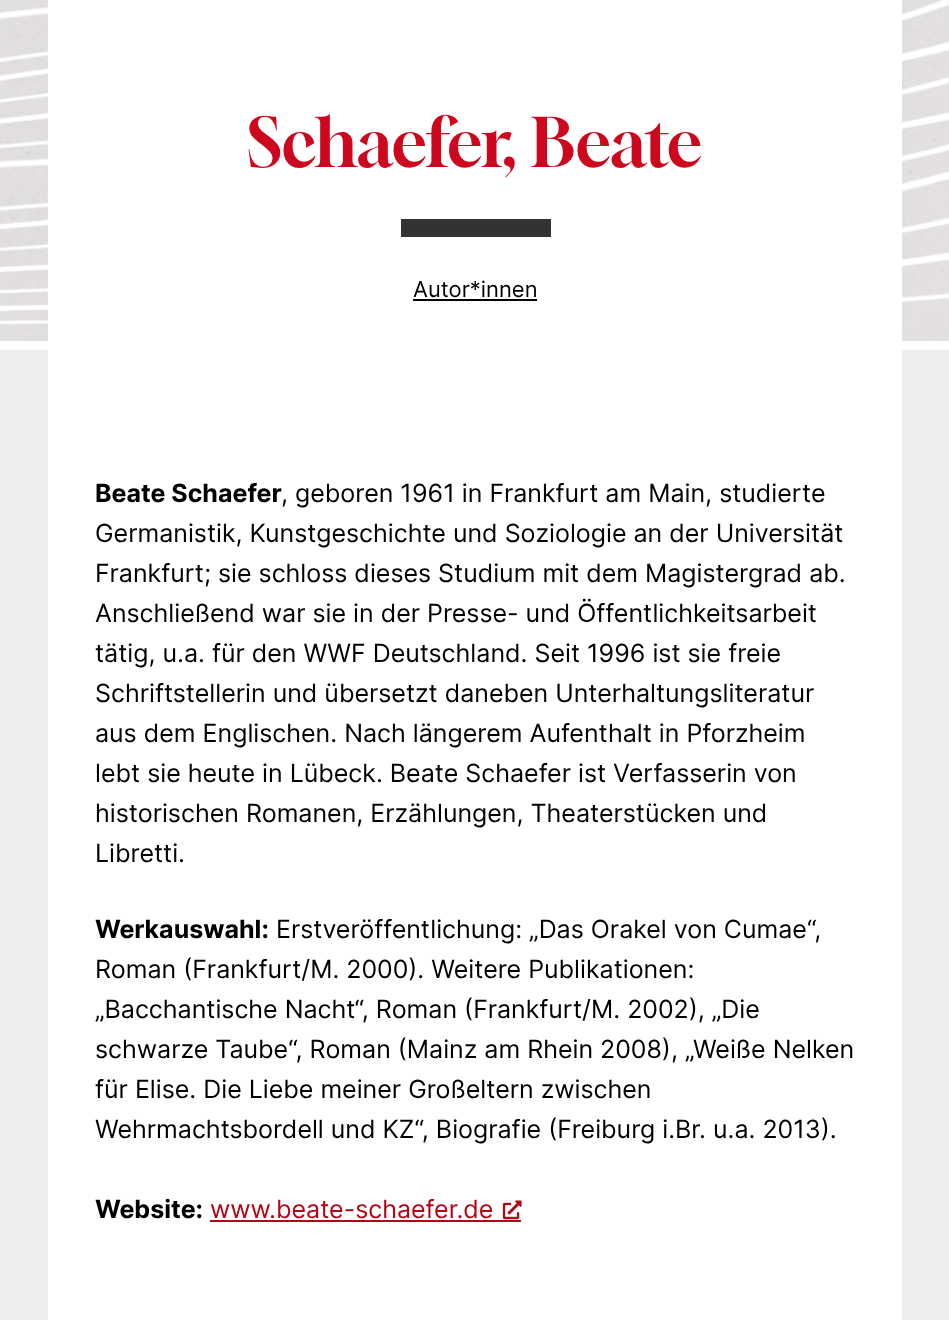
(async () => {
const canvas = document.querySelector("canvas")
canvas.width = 949
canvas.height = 1320
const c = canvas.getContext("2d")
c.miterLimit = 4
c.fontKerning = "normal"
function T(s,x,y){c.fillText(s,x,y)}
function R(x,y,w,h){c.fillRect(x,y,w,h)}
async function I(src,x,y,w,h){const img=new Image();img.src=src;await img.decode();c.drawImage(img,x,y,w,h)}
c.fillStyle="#fff"
R(0,0,949,1320)
await I("1.png",0,0,949,341)
await I("2.png",0,0,949,325)
c.fillStyle="#eee"
R(0,350,949,970)
c.fillStyle="#fff"
R(48,0,854,1320)
c.font="67px Gloock"
c.fillStyle="#cd071e"
T("Schaefer, Beate",247,167)
c.fillStyle="#333"
R(401,219,150,18)
c.font="22px Inter"
c.fillStyle="#000"
T("Autor*innen",413,297)
R(413,299,124,2)
c.font="bold 25px Inter"
T("Beate Schaefer",95,502)
c.font="25px Inter"
T(", geboren 1961 in Frankfurt am Main, studierte",281,502)
T("Germanistik, Kunstgeschichte und Soziologie an der Universität",95,542)
T("Frankfurt; sie schloss dieses Studium mit dem Magistergrad ab.",95,582)
T("Anschließend war sie in der Presse- und Öffentlichkeitsarbeit",95,622)
T("tätig, u.a. für den WWF Deutschland. Seit 1996 ist sie freie",95,662)
T("Schriftstellerin und übersetzt daneben Unterhaltungsliteratur",95,702)
T("aus dem Englischen. Nach längerem Aufenthalt in Pforzheim",95,742)
T("lebt sie heute in Lübeck. Beate Schaefer ist Verfasserin von",95,782)
T("historischen Romanen, Erzählungen, Theaterstücken und",95,822)
T("Libretti.",95,862)
c.font="bold 25px Inter"
T("Werkauswahl:",95,938)
c.font="25px Inter"
T("Erstveröffentlichung: „Das Orakel von Cumae“,",276,938)
T("Roman (Frankfurt/M. 2000). Weitere Publikationen:",95,978)
T("„Bacchantische Nacht“, Roman (Frankfurt/M. 2002), „Die",95,1018)
T("schwarze Taube“, Roman (Mainz am Rhein 2008), „Weiße Nelken",95,1058)
T("für Elise. Die Liebe meiner Großeltern zwischen",95,1098)
T("Wehrmachtsbordell und KZ“, Biografie (Freiburg i.Br. u.a. 2013).",95,1138)
c.font="bold 25px Inter"
T("Website:",95,1218)
c.font="25px Inter"
c.fillStyle="#b30617"
T("www.beate-schaefer.de",210,1218)
R(210,1220,311,2)
await I("3.png",502,1200,20,20)
})()
